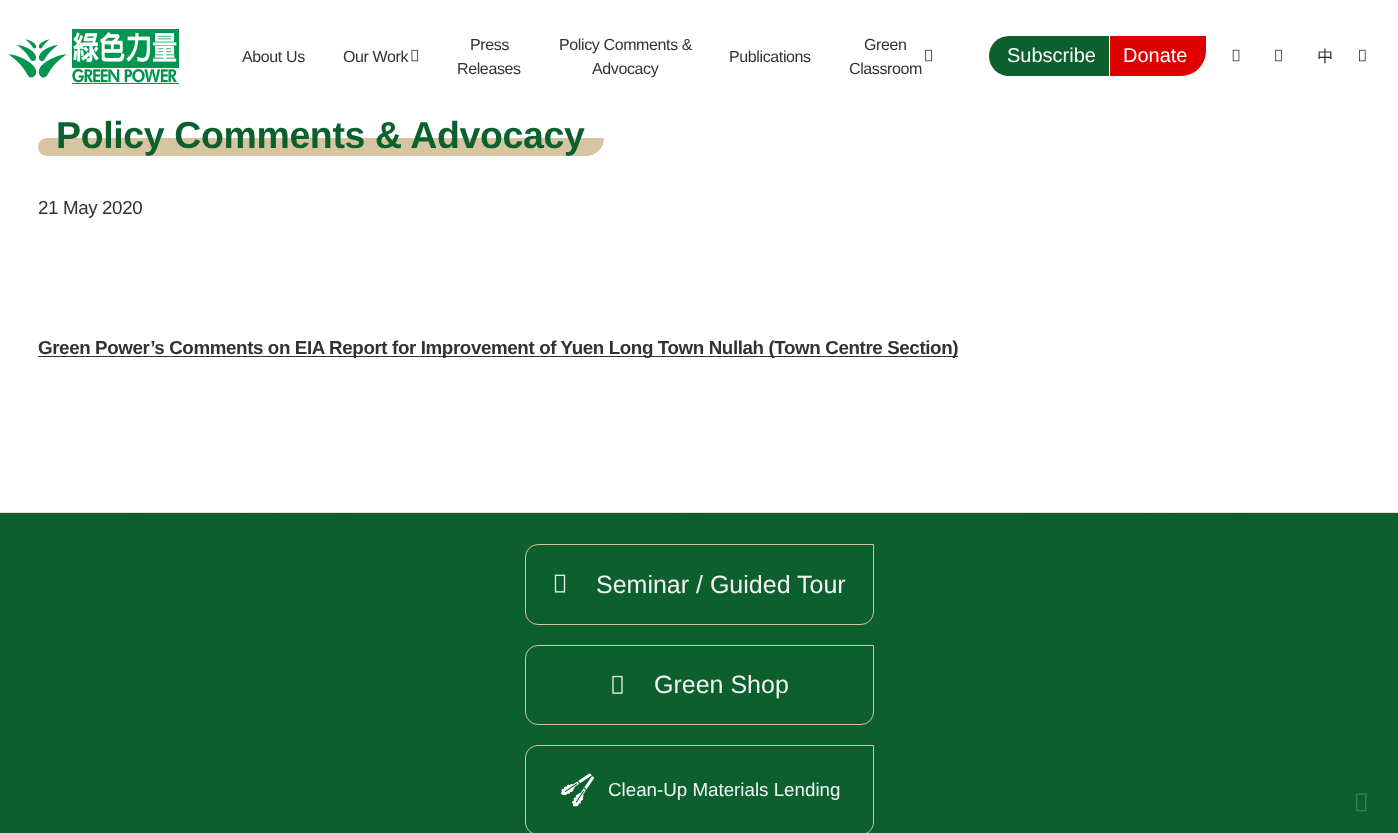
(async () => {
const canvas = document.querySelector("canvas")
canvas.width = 1398
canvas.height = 833
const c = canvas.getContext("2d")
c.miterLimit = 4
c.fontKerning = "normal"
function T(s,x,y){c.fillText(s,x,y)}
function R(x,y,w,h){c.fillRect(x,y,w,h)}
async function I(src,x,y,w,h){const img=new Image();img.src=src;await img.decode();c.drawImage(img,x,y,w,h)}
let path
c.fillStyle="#fff"
R(0,0,1398,833)
await I("1.png",8,29,171,55)
c.letterSpacing="-0.38px"
c.font="16px Liberation Sans"
c.fillStyle="#323232"
T("About Us",242,62)
T("Our Work",343,62)
await I("2.png",411,49,8,13)
T("Press",470,50)
T("Releases",457,74)
T("Policy Comments &",559,50)
T("Advocacy",592,74)
T("Publications",729,62)
T("Green",864,50)
T("Classroom",849,74)
await I("3.png",925,49,7,13)
c.fillStyle="#0b602d"
c.beginPath()
c.roundRect(989,36,120,40,[20,0,0,20])
c.fill()
c.letterSpacing="0px"
c.font="20px Liberation Sans"
c.fillStyle="#fff"
T("Subscribe",1007,62)
c.fillStyle="#de0000"
c.beginPath()
c.roundRect(1110,36,96,40,[0,0,25,0])
c.fill()
c.fillStyle="#fff"
T("Donate",1123,62)
await I("4.png",1232,49,8,13)
await I("3.png",1275,49,7,13)
c.font="16px Noto Sans TC"
c.fillStyle="#323232"
T("中",1317,62)
await I("5.png",1359,49,7,13)
c.fillStyle="#d7c4a0"
R(56,138,529,18)
c.letterSpacing="-0.38px"
c.font="bold 37.5px Liberation Sans"
c.fillStyle="#0b602d"
T("Policy Comments & Advocacy",56,148)
c.fillStyle="#d7c4a0"
c.beginPath()
c.roundRect(38,138,18,18,[9,0,0,9])
c.fill()
c.beginPath()
c.roundRect(585,138,19,18,[0,0,18,0])
c.fill()
c.font="18.75px Liberation Sans"
c.fillStyle="#323232"
T("21 May 2020",38,214)
R(38,356,920,1)
c.font="bold 18.75px Liberation Sans"
T("Green Power’s Comments on EIA Report for Improvement of Yuen Long Town Nullah (Town Centre Section)",38,354)
await I("6.png",0,512,1398,1)
c.fillStyle="#0b602d"
R(0,513,1398,320)
c.beginPath()
c.roundRect(525.5,544.5,348,80,[12.5,0,12.5,12.5])
c.strokeStyle="#d7c4a0"
c.stroke()
await I("7.png",554,574,12,19)
c.letterSpacing="0px"
c.font="25px Liberation Sans"
c.fillStyle="#f5f5f5"
T("Seminar / Guided Tour",596,593)
c.beginPath()
c.roundRect(525.5,645.5,348,79,[12.5,0,12.5,12.5])
c.stroke()
await I("8.png",612,675,11,19)
T("Green Shop",654,693)
path = new Path2D("M538 745.5h335.5v76.5c0 7-5.5 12.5-12.5 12.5h-323c-7 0-12.5-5.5-12.5-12.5v-64c0-7 5.5-12.5 12.5-12.5z")
c.stroke(path)
await I("9.png",561,773,33,34)
c.font="18.75px Liberation Sans"
T("Clean-Up Materials Lending",608,796)
await I("10.png",1356,793,11,19)
c.fillStyle="#13572e"
R(1354,813,15,1)
})()
